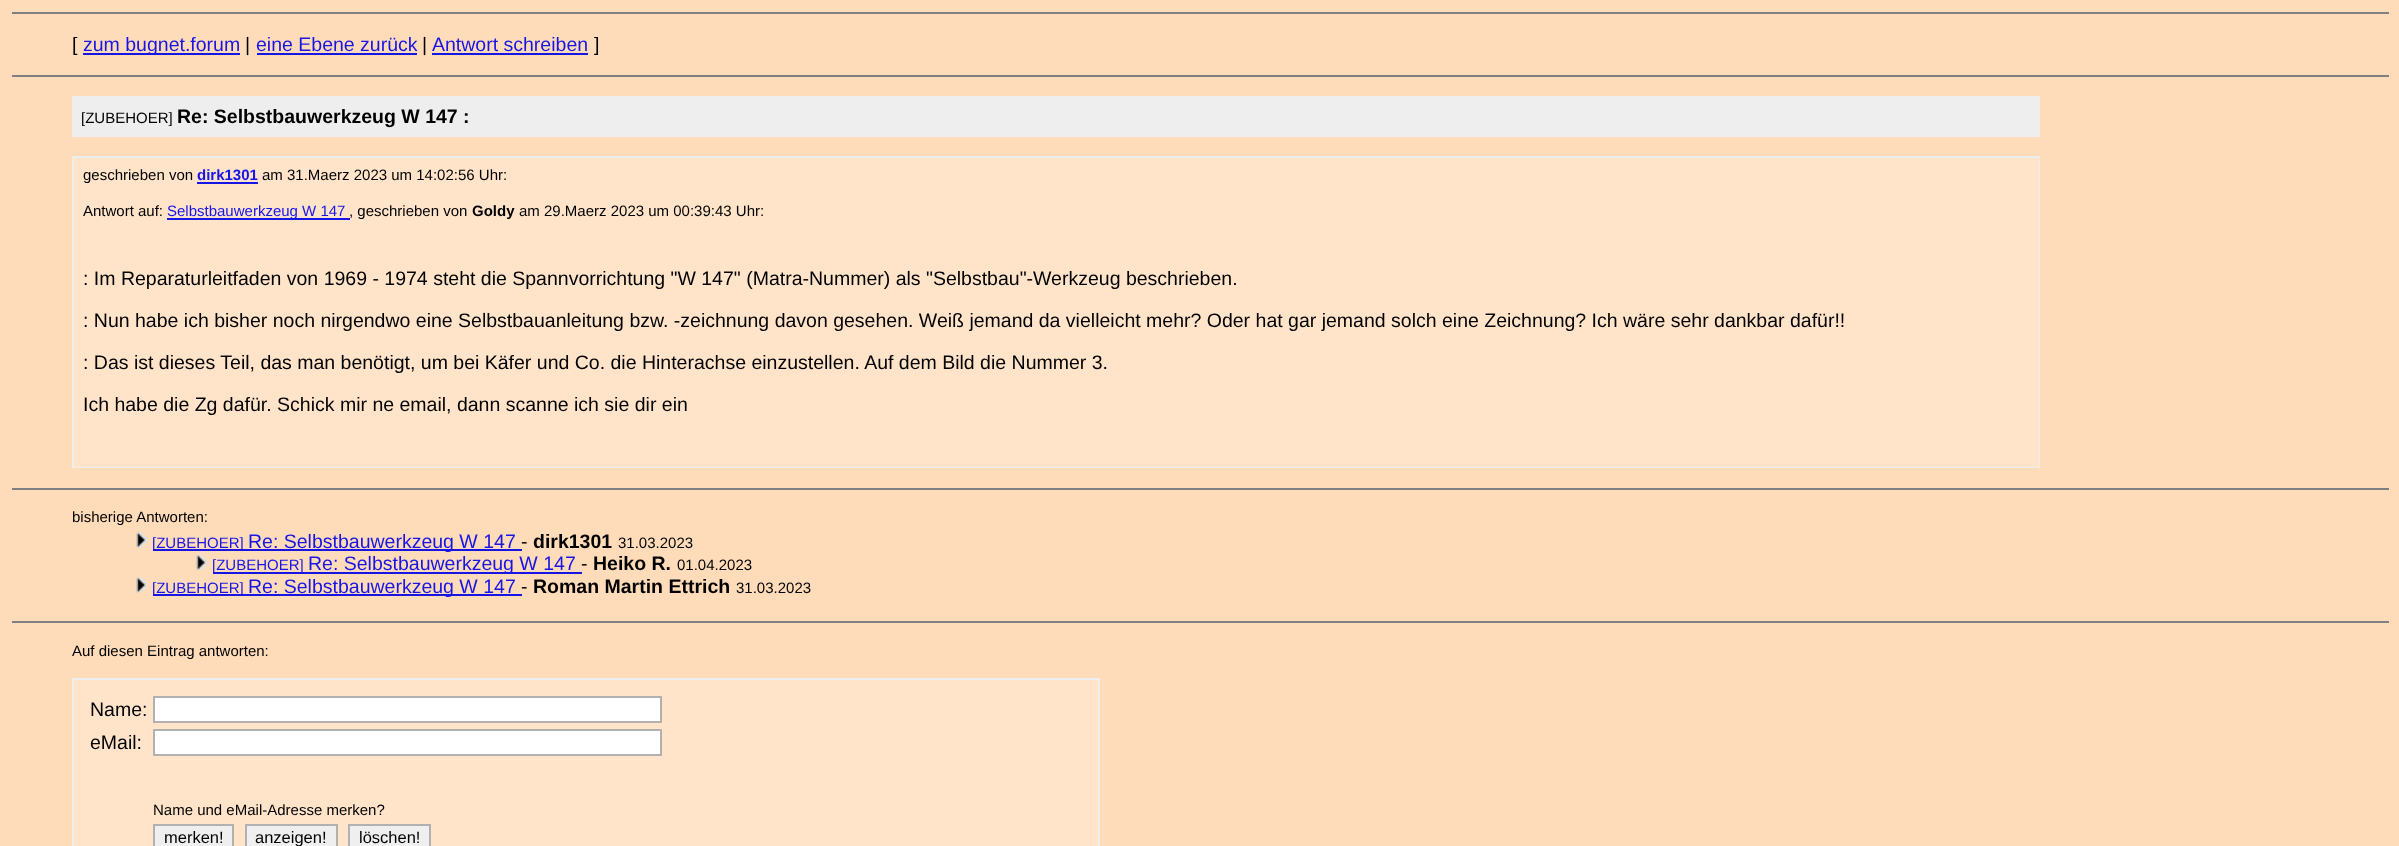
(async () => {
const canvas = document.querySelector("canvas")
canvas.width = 2399
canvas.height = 846
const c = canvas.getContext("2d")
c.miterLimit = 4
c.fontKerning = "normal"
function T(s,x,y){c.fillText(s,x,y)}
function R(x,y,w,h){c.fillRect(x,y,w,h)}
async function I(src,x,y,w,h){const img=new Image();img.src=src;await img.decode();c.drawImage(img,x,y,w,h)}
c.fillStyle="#ffdcb9"
R(0,0,2399,846)
c.fillStyle="#808080"
R(12,12,2377,2)
c.font="19.5px Liberation Sans"
c.fillStyle="#000"
T("[",72,51)
c.fillStyle="#1715e8"
R(83,53,157,2)
T("zum bugnet.forum",83,51)
c.fillStyle="#000"
T("|",245,51)
c.fillStyle="#1715e8"
T("eine Ebene zurück",256,51)
R(257,53,160,2)
c.fillStyle="#000"
T("|",422,51)
c.fillStyle="#1715e8"
T("Antwort schreiben",432,51)
R(432,53,156,2)
c.fillStyle="#000"
T("]",594,51)
c.fillStyle="#808080"
R(12,75,2377,2)
c.fillStyle="#eee"
R(72,96,1968,41)
c.font="15px Liberation Sans"
c.fillStyle="#000"
T("[ZUBEHOER]",81,123)
c.font="bold 19.5px Liberation Sans"
T("Re: Selbstbauwerkzeug W 147 :",177,123)
c.fillStyle="#eee"
R(72,156,1968,312)
c.fillStyle="#ffe4ca"
R(74,158,1965,309)
c.font="15px Liberation Sans"
c.fillStyle="#000"
T("geschrieben von",83,180)
c.font="bold 15px Liberation Sans"
c.fillStyle="#1715e8"
T("dirk1301",197,180)
R(197,182,61,2)
c.font="15px Liberation Sans"
c.fillStyle="#000"
T("am 31.Maerz 2023 um 14:02:56 Uhr:",262,180)
T("Antwort auf:",83,216)
c.fillStyle="#1715e8"
R(167,218,183,2)
T("Selbstbauwerkzeug W 147",167,216)
c.fillStyle="#000"
T(", geschrieben von",349,216)
c.font="bold 15px Liberation Sans"
T("Goldy",472,216)
c.font="15px Liberation Sans"
T("am 29.Maerz 2023 um 00:39:43 Uhr:",519,216)
c.font="19.5px Liberation Sans"
T(": Im Reparaturleitfaden von 1969 - 1974 steht die Spannvorrichtung \"W 147\" (Matra-Nummer) als \"Selbstbau\"-Werkzeug beschrieben.",83,285)
T(": Nun habe ich bisher noch nirgendwo eine Selbstbauanleitung bzw. -zeichnung davon gesehen. Weiß jemand da vielleicht mehr? Oder hat gar jemand solch eine Zeichnung? Ich wäre sehr dankbar dafür!!",83,327)
T(": Das ist dieses Teil, das man benötigt, um bei Käfer und Co. die Hinterachse einzustellen. Auf dem Bild die Nummer 3.",83,369)
T("Ich habe die Zg dafür. Schick mir ne email, dann scanne ich sie dir ein",83,411)
c.fillStyle="#808080"
R(12,488,2377,2)
c.font="15px Liberation Sans"
c.fillStyle="#000"
T("bisherige Antworten:",72,522)
await I("1.png",136,532,11,16)
c.fillStyle="#1715e8"
R(153,549,369,2)
T("[ZUBEHOER]",152,548)
c.font="19.5px Liberation Sans"
T("Re: Selbstbauwerkzeug W 147",248,548)
c.fillStyle="#000"
T("-",521,548)
c.font="bold 19.5px Liberation Sans"
T("dirk1301",533,548)
c.font="15px Liberation Sans"
T("31.03.2023",618,548)
await I("2.png",196,555,11,15)
c.fillStyle="#1715e8"
R(213,572,369,2)
T("[ZUBEHOER]",212,570)
c.font="19.5px Liberation Sans"
T("Re: Selbstbauwerkzeug W 147",308,570)
c.fillStyle="#000"
T("-",581,570)
c.font="bold 19.5px Liberation Sans"
T("Heiko R.",593,570)
c.font="15px Liberation Sans"
T("01.04.2023",677,570)
await I("1.png",136,577,11,16)
c.fillStyle="#1715e8"
R(153,594,369,2)
T("[ZUBEHOER]",152,593)
c.font="19.5px Liberation Sans"
T("Re: Selbstbauwerkzeug W 147",248,593)
c.fillStyle="#000"
T("-",521,593)
c.font="bold 19.5px Liberation Sans"
T("Roman Martin Ettrich",533,593)
c.font="15px Liberation Sans"
T("31.03.2023",736,593)
c.fillStyle="#808080"
R(12,621,2377,2)
c.fillStyle="#000"
T("Auf diesen Eintrag antworten:",72,656)
c.fillStyle="#eee"
R(72,678,1028,168)
c.fillStyle="#ffe4ca"
R(74,680,1024,166)
c.font="19.5px Liberation Sans"
c.fillStyle="#000"
T("Name:",90,716)
c.fillStyle="#fff"
c.beginPath()
c.rect(154,697,507,25)
c.fill()
c.strokeStyle="#b1b1b1"
c.lineWidth=2
c.stroke()
c.fillStyle="#000"
T("eMail:",90,749)
c.fillStyle="#fff"
c.beginPath()
c.rect(154,730,507,25)
c.fill()
c.stroke()
c.font="15px Liberation Sans"
c.fillStyle="#000"
T("Name und eMail-Adresse merken?",153,815)
c.fillStyle="#efefef"
c.beginPath()
c.rect(154,825,79,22)
c.fill()
c.stroke()
c.font="16.5px Liberation Sans"
c.fillStyle="#000"
T("merken!",164,843)
c.fillStyle="#efefef"
c.beginPath()
c.rect(246,825,91,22)
c.fill()
c.stroke()
c.fillStyle="#000"
T("anzeigen!",255,843)
c.fillStyle="#efefef"
c.beginPath()
c.rect(349,825,81,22)
c.fill()
c.stroke()
c.fillStyle="#000"
T("löschen!",359,843)
})()
